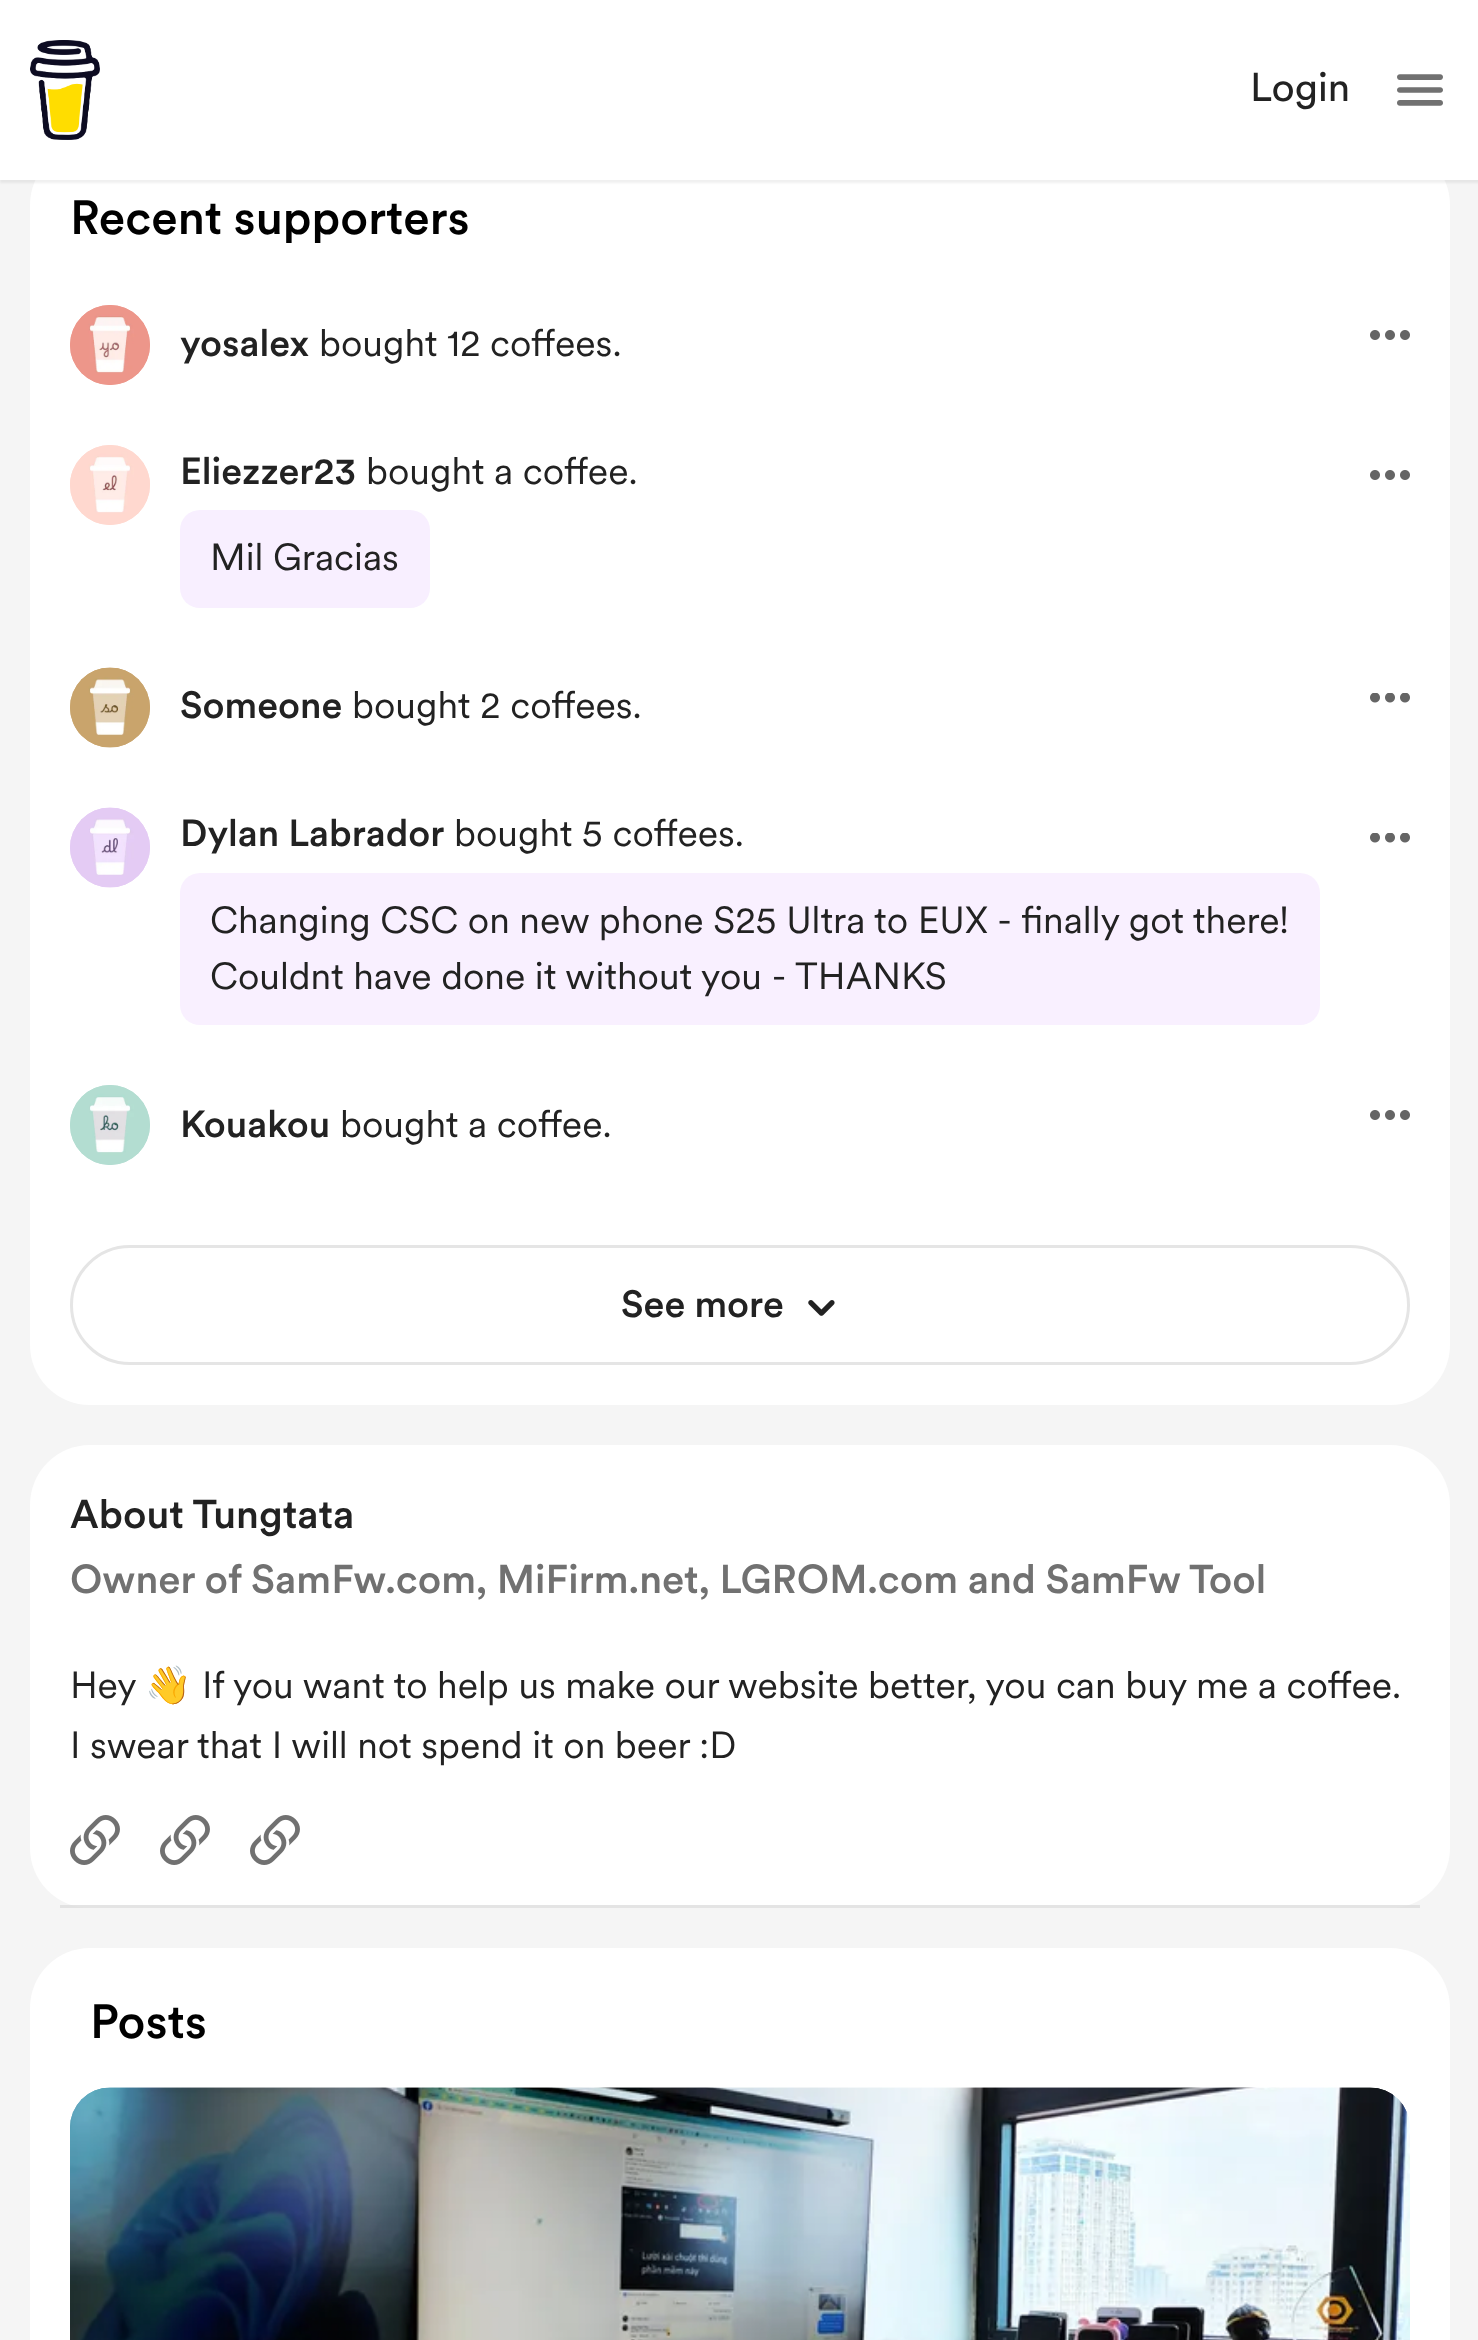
(async () => {
const canvas = document.querySelector("canvas")
canvas.width = 1478
canvas.height = 2340
const c = canvas.getContext("2d")
c.miterLimit = 4
c.fontKerning = "normal"
function T(s,x,y){c.fillText(s,x,y)}
function R(x,y,w,h){c.fillRect(x,y,w,h)}
function Q(x,y,w,h,r){c.beginPath();c.roundRect(x,y,w,h,r);c.fill()}
async function I(src,x,y,w,h){const img=new Image();img.src=src;await img.decode();c.drawImage(img,x,y,w,h)}
c.fillStyle="#f5f5f5"
R(0,0,1478,2340)
c.fillStyle="#fff"
Q(30,145,1420,1260,60)
c.fillStyle="#0000000f"
c.filter="blur(1px)"
c.beginPath()
c.rect(0,3,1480,180)
c.fill()
c.filter="none"
c.fillStyle="#fff"
R(0,0,1478,180)
await I("1.png",30,40,70,100)
c.font="40px 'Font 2'"
c.fillStyle="#222"
T("Login",1250,101)
await I("2.png",1397,74,46,32)
c.font="500 47.5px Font"
c.fillStyle="#000"
T("Recent supporters",70,234)
await I("3.png",70,305,80,80)
await I("4.png",70,305,80,80)
c.font="500 37.5px Font"
c.fillStyle="#222"
T("yosalex",180,356)
c.font="37.5px Font"
T("bought 12 coffees.",319,356)
await I("5.png",1370,330,40,10)
await I("6.png",70,445,80,80)
await I("7.png",70,445,80,80)
c.font="500 37.5px Font"
T("Eliezzer23",180,484)
c.font="37.5px Font"
T("bought a coffee.",366,484)
c.fillStyle="#f8efff"
Q(180,510,250,98,20)
c.fillStyle="#222"
T("Mil Gracias",210,570)
await I("5.png",1370,470,40,10)
await I("8.png",70,667,80,81)
await I("9.png",70,667,80,81)
c.font="500 37.5px Font"
T("Someone",180,718)
c.font="37.5px Font"
T("bought 2 coffees.",352,718)
await I("10.png",1370,693,40,10)
await I("11.png",70,807,80,81)
await I("12.png",70,807,80,81)
c.font="500 37.5px Font"
T("Dylan Labrador",180,846)
c.font="37.5px Font"
T("bought 5 coffees.",454,846)
c.fillStyle="#f9f0ff"
Q(180,873,1140,152,20)
c.fillStyle="#222"
T("Changing CSC on new phone S25 Ultra",210,933)
T("to EUX - finally got there!",874,933)
T("Couldnt have done it without you - THANKS",210,989)
await I("10.png",1370,833,40,10)
await I("13.png",70,1085,80,80)
await I("14.png",70,1085,80,80)
c.font="500 37.5px Font"
T("Kouakou",180,1137)
c.font="37.5px Font"
T("bought a coffee.",340,1137)
await I("5.png",1370,1110,40,10)
c.beginPath()
c.roundRect(71.5,1246.5,1337,117,58.5)
c.strokeStyle="#e5e5e5"
c.lineWidth=3
c.stroke()
c.font="500 37.5px Font"
T("See more",621,1317)
await I("15.png",808,1300,27,16)
c.fillStyle="#fff"
Q(30,1445,1420,463,60)
c.fillStyle="#ddddddcc"
R(60,1905,1360,3)
c.font="500 40px Font"
c.fillStyle="#222"
T("About Tungtata",70,1528)
c.fillStyle="#717171"
T("Owner of SamFw.com, MiFirm.net, LGROM.com and SamFw Tool",70,1593)
c.font="37.5px Font"
c.fillStyle="#222"
T("Hey",70,1698)
c.font="37.5px Noto Color Emoji"
T("👋",145,1698)
c.font="37.5px Font"
T("If you want to help us make our website better, you can buy me a coffee.",202,1698)
T("I swear that I will not spend it on beer :D",70,1758)
await I("16.png",70,1815,50,50)
await I("16.png",160,1815,50,50)
await I("16.png",250,1815,50,50)
c.fillStyle="#fff"
Q(30,1948,1420,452,60)
c.font="500 47.5px Font"
c.fillStyle="#000"
T("Posts",90,2038)
await I("17.png",70,2087,1340,253)
await I("18.png",70,2087,1339,41)
})()
